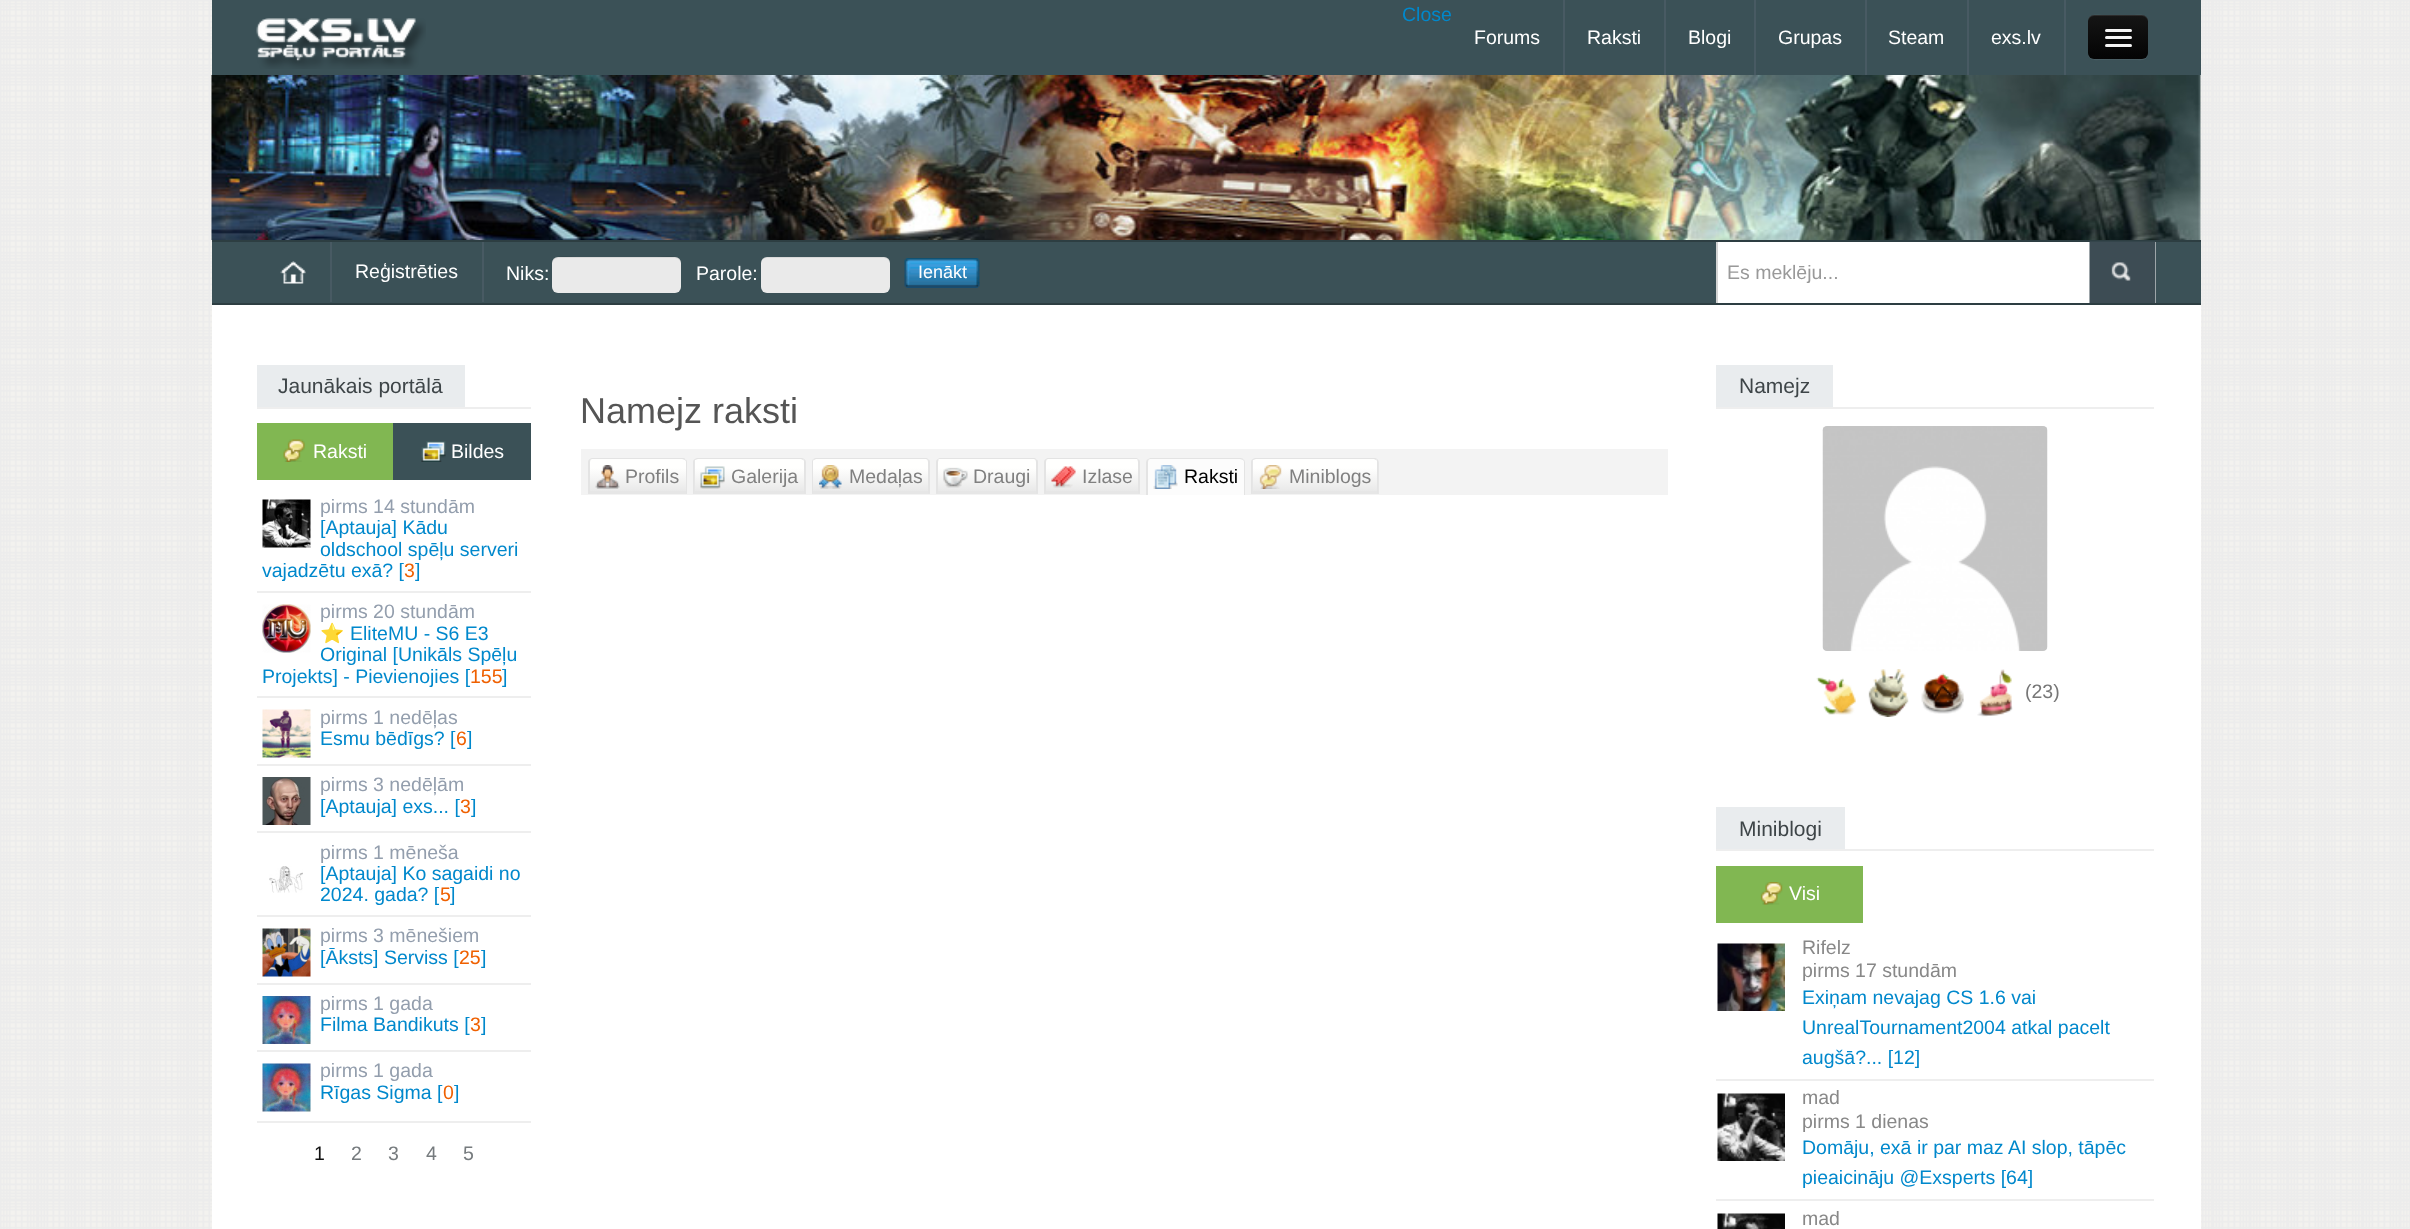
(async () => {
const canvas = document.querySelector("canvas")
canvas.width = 2410
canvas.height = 1229
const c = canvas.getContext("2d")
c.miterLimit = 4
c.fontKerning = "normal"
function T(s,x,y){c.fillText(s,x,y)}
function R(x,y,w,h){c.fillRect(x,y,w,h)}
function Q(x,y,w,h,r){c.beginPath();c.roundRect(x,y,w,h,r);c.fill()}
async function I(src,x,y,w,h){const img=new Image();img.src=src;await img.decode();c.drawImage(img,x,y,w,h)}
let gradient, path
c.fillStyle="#fff"
R(0,0,2410,1229)
await I("1.png",0,0,2410,1229)
c.fillStyle="#3b5157"
R(212,0,1989,75)
await I("2.png",256,18,170,51)
c.font="19.5px Liberation Sans"
c.fillStyle="#08c"
T("Close",1402,21)
c.fillStyle="#485a63"
R(1563,0,2,75)
c.fillStyle="#fff"
T("Forums",1474,44)
c.fillStyle="#485a63"
R(1664,0,2,75)
c.fillStyle="#fff"
T("Raksti",1587,44)
c.fillStyle="#485a63"
R(1754,0,2,75)
c.fillStyle="#fff"
T("Blogi",1688,44)
c.fillStyle="#485a63"
R(1865,0,2,75)
c.fillStyle="#fff"
T("Grupas",1778,44)
c.fillStyle="#485a63"
R(1967,0,2,75)
c.fillStyle="#fff"
T("Steam",1888,44)
c.fillStyle="#485a63"
R(2064,0,2,75)
c.fillStyle="#fff"
T("exs.lv",1991,44)
c.fillStyle="#4a5e64"
path = new Path2D("M2088 52c0 10 7 8 14 8h32c7 0 14 2 14-8c0 4-3 6-6 6h-48c-3 0-6-2-6-6z")
c.fill(path)
gradient = c.createLinearGradient(2118,15,2118,59)
gradient.addColorStop(0,"#151515")
gradient.addColorStop(1,"#040404")
c.fillStyle = gradient
Q(2088,15,60,44,6)
c.fillStyle="#ffffff1a"
path = new Path2D("M2094 16h48c3 0 6 3 6 6c0-9-8-7-14-7h-32c-6 0-14-2-14 7c0-3 3-6 6-6z")
c.fill(path)
c.fillStyle="#0b0b0b"
path = new Path2D("M2105 31c-.5 3 5 2 5.5 2h20c1.5 0 2-2 1-2.5l-1 1c-1.5 .5-25 0-25.5-.5z")
c.fill(path)
c.fillStyle="#f5f5f5"
Q(2105,29,27,3,1.5)
c.fillStyle="#090909"
path = new Path2D("M2105 39c-1.5 3 5.5 2 5.5 2h20.5c1-.5 1.5-2 .5-3l-1.5 1c-2 .5-24 .5-25 0z")
c.fill(path)
c.fillStyle="#f5f5f5"
Q(2105,36,27,3,1.5)
c.fillStyle="#060606"
path = new Path2D("M2105 46c-.5 3 5 2 5.5 2h20c1.5 0 2-2 1-2.5l-1 1c-1.5 .5-25 0-25.5-.5z")
c.fill(path)
c.fillStyle="#f5f5f5"
Q(2105,44,27,3,1.5)
await I("3.png",211,75,1990,165)
c.fillStyle="#3b5157"
R(212,242,1989,61)
c.fillStyle="#2d3e42"
R(212,240,1989,2)
R(212,303,1989,2)
c.fillStyle="#485a63"
R(330,242,2,60)
await I("4.png",280,261,26,23)
R(482,242,2,60)
c.fillStyle="#fff"
T("Reģistrēties",355,278)
T("Niks:",506,280)
c.fillStyle="#eaeaea"
Q(552,257,129,36,6)
c.fillStyle="#00000012"
path = new Path2D("M558 258h117c3 0 6 3 6 6c0-12-20-7-25-7h-78c-6 0-26-5-26 7c0-3 3-6 6-6z")
c.fill(path)
c.fillStyle="#fff"
T("Parole:",696,280)
c.fillStyle="#eaeaea"
Q(761,257,129,36,6)
c.fillStyle="#00000012"
path = new Path2D("M766 258h118c3 0 6 3 6 6v-1c0-3-3-6-6-6h-117c-2 0-4 1-5 3c1-1 3-2 4-2z")
c.fill(path)
await I("5.png",904,258,76,30)
c.font="18px Liberation Sans"
c.fillStyle="#fff"
T("Ienākt",918,278)
R(1718,242,438,61)
c.fillStyle="#d4d4d4"
R(1716,242,2,61)
c.font="19.5px Liberation Sans"
c.fillStyle="#999"
T("Es meklēju...",1727,279)
await I("6.png",2089,241,67,62)
c.fillStyle="#fff"
R(212,305,1989,924)
c.fillStyle="#eee"
R(257,407,274,2)
c.fillStyle="#e9ecee"
R(257,365,208,42)
c.font="21px Liberation Sans"
c.fillStyle="#3e4548"
T("Jaunākais portālā",278,393)
c.fillStyle="#81b752"
R(257,423,136,57)
await I("7.png",283,439,22,23)
c.font="19.5px Liberation Sans"
c.fillStyle="#fff"
T("Raksti",313,458)
c.fillStyle="#3b5157"
R(393,423,138,57)
await I("8.png",421,441,25,21)
c.fillStyle="#fff"
T("Bildes",451,458)
c.fillStyle="#eee"
R(257,591,274,2)
await I("9.png",262,499,49,49)
c.fillStyle="#939ead"
T("pirms 14 stundām",320,513)
c.fillStyle="#08c"
T("[Aptauja] Kādu",320,534)
T("oldschool spēļu serveri",320,556)
T("vajadzētu exā? [",262,577)
c.fillStyle="#ef6000"
T("3",404,577)
c.fillStyle="#08c"
T("]",415,577)
c.fillStyle="#eee"
R(257,696,274,2)
await I("10.png",262,604,49,49)
c.fillStyle="#939ead"
T("pirms 20 stundām",320,618)
c.font="19.5px Noto Color Emoji"
c.fillStyle="#08c"
T("⭐",320,640)
c.font="19.5px Liberation Sans"
T("EliteMU - S6 E3",350,640)
T("Original [Unikāls Spēļu",320,661)
T("Projekts] - Pievienojies [",262,683)
c.fillStyle="#ef6000"
T("155",470,683)
c.fillStyle="#08c"
T("]",502,683)
c.fillStyle="#eee"
R(257,764,274,2)
await I("11.png",262,709,49,49)
c.fillStyle="#939ead"
T("pirms 1 nedēļas",320,724)
c.fillStyle="#08c"
T("Esmu bēdīgs? [",320,745)
c.fillStyle="#ef6000"
T("6",456,745)
c.fillStyle="#08c"
T("]",467,745)
c.fillStyle="#eee"
R(257,831,274,2)
await I("12.png",262,777,49,48)
c.fillStyle="#939ead"
T("pirms 3 nedēļām",320,791)
c.fillStyle="#08c"
T("[Aptauja] exs... [",320,813)
c.fillStyle="#ef6000"
T("3",460,813)
c.fillStyle="#08c"
T("]",471,813)
c.fillStyle="#eee"
R(257,915,274,2)
c.fillStyle="#939ead"
T("pirms 1 mēneša",320,859)
await I("13.png",269,866,34,27)
c.fillStyle="#08c"
T("[Aptauja] Ko sagaidi no",320,880)
T("2024. gada? [",320,901)
c.fillStyle="#ef6000"
T("5",440,901)
c.fillStyle="#08c"
T("]",450,901)
c.fillStyle="#eee"
R(257,983,274,2)
await I("14.png",262,928,49,49)
c.fillStyle="#939ead"
T("pirms 3 mēnešiem",320,942)
c.fillStyle="#08c"
T("[Āksts] Serviss [",320,964)
c.fillStyle="#ef6000"
T("25",459,964)
c.fillStyle="#08c"
T("]",481,964)
c.fillStyle="#eee"
R(257,1050,274,2)
await I("15.png",262,996,49,48)
c.fillStyle="#939ead"
T("pirms 1 gada",320,1010)
c.fillStyle="#08c"
T("Filma Bandikuts [",320,1031)
c.fillStyle="#ef6000"
T("3",470,1031)
c.fillStyle="#08c"
T("]",481,1031)
await I("16.png",262,1063,49,49)
c.fillStyle="#939ead"
T("pirms 1 gada",320,1077)
c.fillStyle="#08c"
T("Rīgas Sigma [",320,1099)
c.fillStyle="#ef6000"
T("0",443,1099)
c.fillStyle="#08c"
T("]",454,1099)
c.fillStyle="#eee"
R(257,1121,274,2)
c.fillStyle="#121212"
T("1",314,1160)
c.fillStyle="#767b7e"
T("2",351,1160)
T("3",388,1160)
T("4",426,1160)
T("5",463,1160)
c.font="36px Liberation Sans"
c.fillStyle="#555"
T("Namejz raksti",580,423)
c.fillStyle="#f3f3f3"
R(581,449,1087,46)
c.fillStyle="#e6e6e6"
c.beginPath()
c.roundRect(588,458,99,36,[5,5,0,0])
c.fill()
gradient = c.createLinearGradient(638,459,638,494)
gradient.addColorStop(0,"#fffffe")
gradient.addColorStop(.25,"#fffffe")
gradient.addColorStop(1,"#e6e6e6")
c.fillStyle = gradient
R(590,459,96,32)
c.fillStyle="#e3e3e3"
path = new Path2D("M592 458h90c1 0 3 0 3 1v1l-3-1h-90l-2 1v-1z")
c.fill(path)
c.fillStyle="#e4e4e4"
path = new Path2D("M687 493.5v-31.5c0-1-.5-2-1.5-3l-.5 1l1 1.5v32z")
c.fill(path)
path = new Path2D("M588 493.5h2v-31.5l.5-2l-1-1c-1 1-1.5 2-1.5 3z")
c.fill(path)
await I("17.png",595,465,25,24)
c.font="19.5px Liberation Sans"
c.fillStyle="#808080"
T("Profils",625,483)
c.fillStyle="#e6e6e6"
c.beginPath()
c.roundRect(693,458,113,36,[5,5,0,0])
c.fill()
gradient = c.createLinearGradient(749,459,749,494)
gradient.addColorStop(0,"#fffffe")
gradient.addColorStop(.25,"#fffffe")
gradient.addColorStop(1,"#e6e6e6")
c.fillStyle = gradient
R(695,459,109,32)
c.fillStyle="#e3e3e3"
path = new Path2D("M698 458h103l3 1l-1 1l-2-1h-103l-3 1v-1z")
c.fill(path)
c.fillStyle="#e4e4e4"
path = new Path2D("M804 493.5v-31.5c0-1 0-2-1-2l1-1l1.5 1.5v33z")
c.fill(path)
path = new Path2D("M693 493.5h1v-32l1-1.5l-.5-1c-1 1-1.5 2-1.5 3z")
c.fill(path)
await I("18.png",700,466,25,23)
c.fillStyle="#808080"
T("Galerija",731,483)
c.fillStyle="#e6e6e6"
c.beginPath()
c.roundRect(812,458,118,36,[5,5,0,0])
c.fill()
gradient = c.createLinearGradient(871,459,871,494)
gradient.addColorStop(0,"#fffffe")
gradient.addColorStop(.25,"#fffffe")
gradient.addColorStop(1,"#e6e6e6")
c.fillStyle = gradient
R(813,459,116,32)
c.fillStyle="#e3e3e3"
path = new Path2D("M816 458h110l2 1v1l-2-1h-110l-2 1l-1-1z")
c.fill(path)
c.fillStyle="#e4e4e4"
path = new Path2D("M928.5 459c1 1 1.5 2 1.5 3v31.5h-2v-31.5l-.5-2z")
c.fill(path)
path = new Path2D("M813 493.5h-1v-31.5c0-1 .5-2 1-3l1 1c-1 0-1 1-1 2z")
c.fill(path)
await I("19.png",819,465,23,24)
c.fillStyle="#808080"
T("Medaļas",849,483)
c.fillStyle="#e6e6e6"
c.beginPath()
c.roundRect(936,458,102,36,[5,5,0,0])
c.fill()
gradient = c.createLinearGradient(987,459,987,494)
gradient.addColorStop(0,"#fffffe")
gradient.addColorStop(.25,"#fffffe")
gradient.addColorStop(1,"#e6e6e6")
c.fillStyle = gradient
R(938,459,99,32)
c.fillStyle="#e3e3e3"
path = new Path2D("M940 458h94l2 1v1l-2-1h-95l-1 1v-1z")
c.fill(path)
c.fillStyle="#e4e4e4"
path = new Path2D("M1036.5 459c1 1 1.5 2 1.5 3v31.5h-2v-31.5l-.5-2z")
c.fill(path)
path = new Path2D("M936 493.5h2v-31.5l.5-2l-1-1c-1 1-1.5 2-1.5 3z")
c.fill(path)
await I("20.png",943,467,25,21)
c.fillStyle="#808080"
T("Draugi",973,483)
c.fillStyle="#e6e6e6"
c.beginPath()
c.roundRect(1044,458,96,36,[5,5,0,0])
c.fill()
gradient = c.createLinearGradient(1092,459,1092,494)
gradient.addColorStop(0,"#fffffe")
gradient.addColorStop(.25,"#fffffe")
gradient.addColorStop(1,"#e6e6e6")
c.fillStyle = gradient
R(1046,459,93,32)
c.fillStyle="#e3e3e3"
path = new Path2D("M1048 458h88l2 1v1l-1-1h-74h-15l-2 1v-1z")
c.fill(path)
c.fillStyle="#e4e4e4"
path = new Path2D("M1138.5 459c1 1 1.5 2 1.5 3v31.5h-2v-31.5l-.5-2z")
c.fill(path)
path = new Path2D("M1044 493.5h2v-31.5l.5-2l-1-1c-1 1-1.5 2-1.5 3z")
c.fill(path)
await I("21.png",1051,466,25,22)
c.fillStyle="#808080"
T("Izlase",1082,483)
c.fillStyle="#fcfcfc"
c.beginPath()
c.roundRect(1146,458,99,37,[5,5,0,0])
c.fill()
c.fillStyle="#e3e3e3"
path = new Path2D("M1150 458h90c1 0 3 0 3 1v1l-3-1h-90l-2 1v-1z")
c.fill(path)
c.fillStyle="#e4e4e4"
path = new Path2D("M1245 495v-33c0-1-.5-2-1.5-3l-.5 1l1 1.5v33.5z")
c.fill(path)
path = new Path2D("M1146 495h2v-33l.5-2l-1-1c-1 1-1.5 2-1.5 3z")
c.fill(path)
await I("22.png",1153,465,25,24)
c.fillStyle="#000"
T("Raksti",1184,483)
c.fillStyle="#e6e6e6"
c.beginPath()
c.roundRect(1251,458,128,36,[5,5,0,0])
c.fill()
gradient = c.createLinearGradient(1315,459,1315,494)
gradient.addColorStop(0,"#fffffe")
gradient.addColorStop(.25,"#fffffe")
gradient.addColorStop(1,"#e6e6e6")
c.fillStyle = gradient
R(1253,459,124,32)
c.fillStyle="#e3e3e3"
path = new Path2D("M1256 458h118l3 1l-1 1l-2-1h-118l-3 1v-1z")
c.fill(path)
c.fillStyle="#e4e4e4"
path = new Path2D("M1377 493.5v-31.5c0-1 0-2-1-2l1-1c.5 1 1 2 1 3v31.5z")
c.fill(path)
path = new Path2D("M1251 493.5h1v-32l1-1.5l-.5-1c-1 1-1.5 2-1.5 3z")
c.fill(path)
await I("23.png",1259,465,23,24)
c.fillStyle="#808080"
T("Miniblogs",1289,483)
c.fillStyle="#eee"
R(1716,407,438,2)
c.fillStyle="#e9ecee"
R(1716,365,117,42)
c.font="21px Liberation Sans"
c.fillStyle="#3e4548"
T("Namejz",1739,393)
await I("24.png",1822,426,226,225)
await I("25.png",1816,677,40,38)
await I("26.png",1868,669,41,48)
await I("27.png",1921,673,43,41)
await I("28.png",1977,669,36,48)
c.font="19.5px Liberation Sans"
c.fillStyle="#777"
T("(23)",2025,698)
c.fillStyle="#eee"
R(1716,849,438,2)
c.fillStyle="#e9ecee"
R(1716,807,129,42)
c.font="21px Liberation Sans"
c.fillStyle="#3e4548"
T("Miniblogi",1739,836)
c.fillStyle="#81b752"
R(1716,866,147,57)
await I("29.png",1760,882,23,23)
c.font="19.5px Liberation Sans"
c.fillStyle="#fff"
T("Visi",1789,900)
c.fillStyle="#eee"
R(1716,1079,438,2)
await I("30.png",1717,943,68,68)
c.fillStyle="#888"
T("Rifelz",1802,954)
T("pirms 17 stundām",1802,977)
c.fillStyle="#08c"
T("Exiņam nevajag CS 1.6 vai",1802,1004)
T("UnrealTournament2004 atkal pacelt",1802,1034)
T("augšā?... [12]",1802,1064)
c.fillStyle="#eee"
R(1716,1199,438,2)
await I("31.png",1717,1093,68,68)
c.fillStyle="#888"
T("mad",1802,1104)
T("pirms 1 dienas",1802,1128)
c.fillStyle="#08c"
T("Domāju, exā ir par maz AI slop, tāpēc",1802,1154)
T("pieaicināju @Exsperts [64]",1802,1184)
await I("32.png",1717,1213,68,16)
c.fillStyle="#888"
T("mad",1802,1225)
})()
